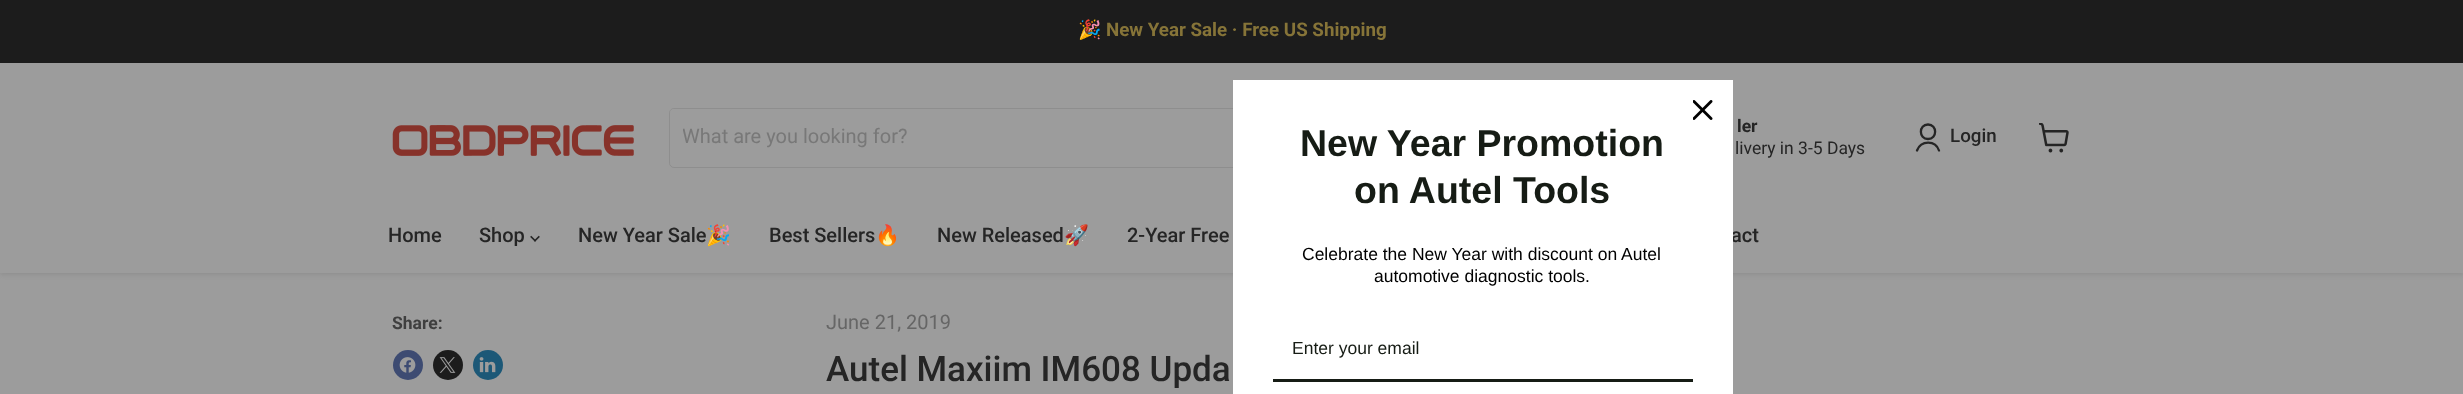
(async () => {
const canvas = document.querySelector("canvas")
canvas.width = 2463
canvas.height = 394
const c = canvas.getContext("2d")
c.miterLimit = 4
c.fontKerning = "normal"
function T(s,x,y){c.fillText(s,x,y)}
function R(x,y,w,h){c.fillRect(x,y,w,h)}
async function I(src,x,y,w,h){const img=new Image();img.src=src;await img.decode();c.drawImage(img,x,y,w,h)}
let path
c.fillStyle="#9c9c9c"
R(0,0,2463,394)
c.fillStyle="#5c5c5c40"
c.filter="blur(2.5px)"
c.beginPath()
c.rect(0,64,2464,210)
c.fill()
c.filter="none"
c.fillStyle="#1c1c1c"
R(0,0,2463,63)
c.font="bold 18.75px Noto Color Emoji"
c.fillStyle="#867438"
T("🎉",1078,36)
c.font="bold 18.75px Roboto"
T("New Year Sale · Free US Shipping",1106,36)
c.fillStyle="#9c9c9c"
R(0,63,2463,210)
await I("1.png",392,125,242,31)
c.beginPath()
c.roundRect(669.5,108.5,895,59,4.5)
c.strokeStyle="#5c5c5c33"
c.stroke()
c.beginPath()
c.roundRect(670,109,826,57,[4,0,0,4])
c.fill()
c.save()
c.beginPath()
c.rect(683,124,801,24)
c.clip()
c.font="20px Roboto"
c.fillStyle="#787878"
T("What are you looking for?",682,143)
c.restore()
c.font="bold 17.5px Roboto"
c.fillStyle="#252525"
T("ler",1737,132)
c.font="17.5px Roboto"
T("livery in 3-5 Days",1735,154)
path = new Path2D("M1928 139c9.5 0 9.5-14.5 0-14.5c-9.5 0-9.5 14.5 0 14.5zm11 11.5c-3.5-10.5-18-10.5-22 0")
c.strokeStyle="#252525"
c.lineWidth=2.3
c.lineCap="round"
c.lineJoin="round"
c.stroke(path)
c.font="500 18.75px Roboto"
T("Login",1950,142)
await I("2.png",2039,123,30,30)
c.font="500 20px Roboto"
T("Home",388,242)
T("Shop",479,242)
await I("3.png",530,235,10,7)
T("New Year Sale",578,242)
c.font="20px Noto Color Emoji"
T("🎉",706,242)
c.font="500 20px Roboto"
T("Best Sellers",769,242)
c.font="20px Noto Color Emoji"
T("🔥",875,242)
c.font="500 20px Roboto"
T("New Released",937,242)
c.font="20px Noto Color Emoji"
T("🚀",1064,242)
c.font="500 20px Roboto"
T("2-Year Free",1127,242)
T("act",1731,242)
c.font="bold 17.5px Roboto"
c.fillStyle="#3f3f3f"
T("Share:",392,329)
c.fillStyle="#3d4b72"
c.beginPath()
c.arc(408,365,15,0,7)
c.fill()
await I("4.png",399,357,17,16)
c.fillStyle="#1c1c1c"
c.beginPath()
c.arc(448,365,15,0,7)
c.fill()
await I("5.png",439,357,17,16)
c.fillStyle="#1c5877"
c.beginPath()
c.arc(488,365,15,0,7)
c.fill()
await I("6.png",479,357,17,16)
c.font="20px Roboto"
c.fillStyle="#666"
T("June 21, 2019",826,329)
c.font="500 35px Roboto"
c.fillStyle="#252525"
T("Autel Maxiim IM608 Upda",826,381)
c.fillStyle="#fff"
R(1233,80,500,314)
await I("7.png",1693,100,20,20)
c.font="bold 37.5px Liberation Sans"
c.fillStyle="#161c15"
T("New Year Promotion",1300,156)
T("on Autel Tools",1354,203)
c.font="17.5px Liberation Sans"
c.fillStyle="#000"
T("Celebrate the New Year with discount on Autel",1302,260)
T("automotive diagnostic tools.",1374,282)
c.fillStyle="#161c15"
R(1273,379,420,3)
T("Enter your email",1292,354)
})()
